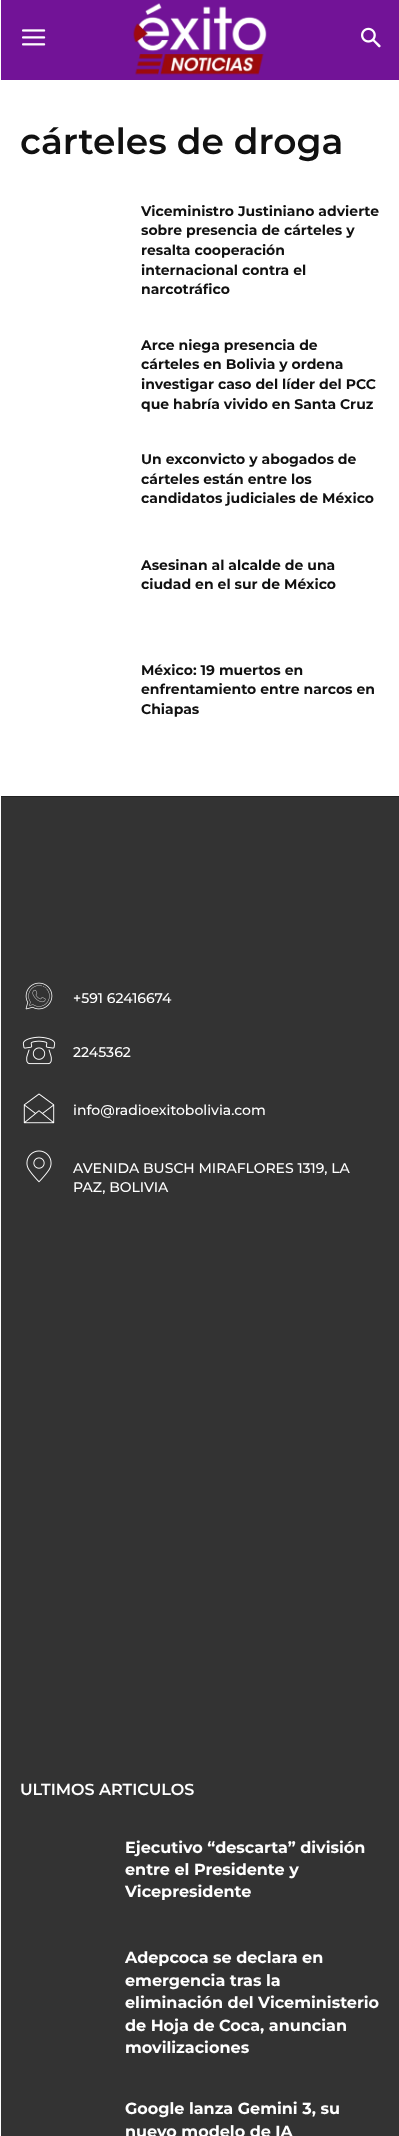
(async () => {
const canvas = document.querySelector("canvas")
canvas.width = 399
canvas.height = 2136
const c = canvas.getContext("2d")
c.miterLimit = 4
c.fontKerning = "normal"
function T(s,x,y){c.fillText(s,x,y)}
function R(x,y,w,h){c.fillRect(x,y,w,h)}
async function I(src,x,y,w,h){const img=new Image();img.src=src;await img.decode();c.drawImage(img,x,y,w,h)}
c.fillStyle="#fff"
R(0,0,399,2136)
c.fillStyle="#333"
R(1,797,398,1339)
c.fillStyle="#721397"
R(1,0,398,80)
await I("1.png",22,29,24,17)
await I("2.png",133,3,134,72)
await I("3.png",361,27,20,21)
c.font="600 36px Montserrat"
c.fillStyle="#111"
T("cárteles de droga",20,154)
c.font="bold 14px Montserrat"
T("Viceministro Justiniano advierte",141,216)
T("sobre presencia de cárteles y",141,235)
T("resalta cooperación",141,255)
T("internacional contra el",141,275)
T("narcotráfico",141,294)
T("Arce niega presencia de",141,350)
T("cárteles en Bolivia y ordena",141,369)
T("investigar caso del líder del PCC",141,389)
T("que habría vivido en Santa Cruz",141,409)
T("Un exconvicto y abogados de",141,464)
T("cárteles están entre los",141,484)
T("candidatos judiciales de México",141,503)
T("Asesinan al alcalde de una",141,570)
T("ciudad en el sur de México",141,589)
T("México: 19 muertos en",141,675)
T("enfrentamiento entre narcos en",141,694)
T("Chiapas",141,714)
c.fillStyle="#222"
R(1,796,398,1)
await I("4.png",25,982,28,28)
c.font="500 14px Montserrat"
c.fillStyle="#fff"
T("+591 62416674",73,1003)
await I("5.png",22,1036,34,29)
T("2245362",73,1057)
await I("6.png",23,1093,32,31)
T("info@radioexitobolivia.com",73,1115)
await I("7.png",26,1150,26,33)
T("AVENIDA BUSCH MIRAFLORES 1319, LA",73,1173)
T("PAZ, BOLIVIA",73,1192)
c.font="600 16px Montserrat"
T("ULTIMOS ARTICULOS",20,1795)
c.font="bold 16px Montserrat"
T("Ejecutivo “descarta” división",125,1853)
T("entre el Presidente y",125,1875)
T("Vicepresidente",125,1897)
T("Adepcoca se declara en",125,1963)
T("emergencia tras la",125,1986)
T("eliminación del Viceministerio",125,2008)
T("de Hoja de Coca, anuncian",125,2031)
T("movilizaciones",125,2053)
T("Google lanza Gemini 3, su",125,2114)
T("nuevo modelo de IA",125,2137)
})()
